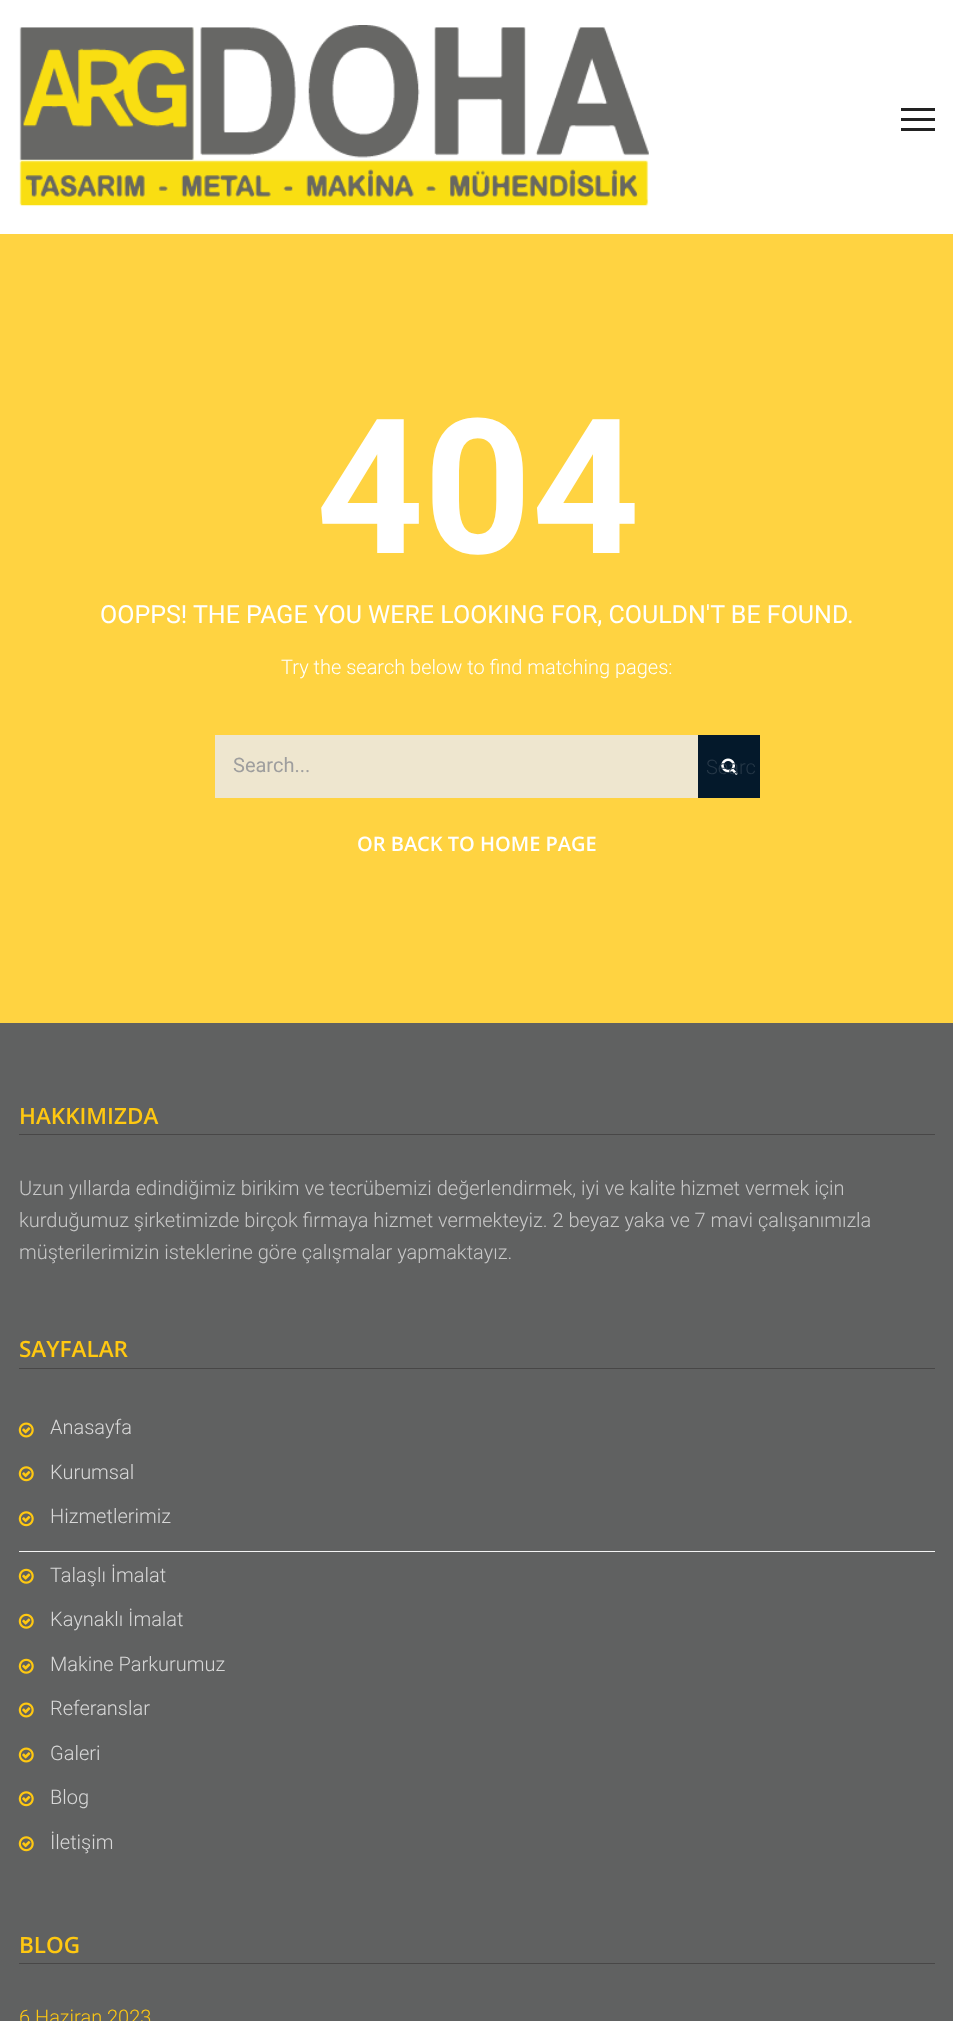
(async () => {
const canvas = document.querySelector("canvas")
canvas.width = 953
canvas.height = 2021
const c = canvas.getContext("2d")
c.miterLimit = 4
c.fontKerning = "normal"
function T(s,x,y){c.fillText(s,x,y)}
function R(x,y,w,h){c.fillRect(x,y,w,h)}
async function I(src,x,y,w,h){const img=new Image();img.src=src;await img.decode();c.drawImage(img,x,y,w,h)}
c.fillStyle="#fff"
R(0,0,953,2021)
await I("1.png",19,25,630,182)
c.fillStyle="#222"
R(901,118,34,3)
R(901,108,34,3)
R(901,128,34,3)
c.fillStyle="#ffd341"
R(0,234,953,789)
c.font="bold 188px Roboto"
c.fillStyle="#fff"
T("404",316,553)
c.font="25px Roboto"
T("OOPPS! THE PAGE YOU WERE LOOKING FOR, COULDN'T BE FOUND.",100,623)
c.font="300 20px Roboto"
T("Try the search below to find matching pages:",281,674)
c.fillStyle="#eee6cf"
R(215,735,483,63)
c.font="20px Roboto"
c.fillStyle="#9e9e9e"
T("Search...",233,772)
c.fillStyle="#04192b"
R(698,735,62,63)
await I("2.png",721,758,17,17)
c.font="300 20px Roboto"
c.fillStyle="#253747"
T("Searc",706,774)
c.font="600 20px Open Sans"
c.fillStyle="#fff"
T("OR BACK TO HOME PAGE",357,851)
c.fillStyle="#606161"
R(0,1023,953,998)
c.fillStyle="#484747"
R(19,1134,916,1)
c.font="600 22.5px Open Sans"
c.fillStyle="#ffc811"
T("HAKKIMIZDA",19,1124)
c.font="300 20px Roboto"
c.fillStyle="#c8c8c8"
T("Uzun yıllarda edindiğimiz birikim ve tecrübemizi değerlendirmek, iyi ve kalite hizmet vermek için",19,1195)
T("kurduğumuz şirketimizde birçok firmaya hizmet vermekteyiz. 2 beyaz yaka ve 7 mavi çalışanımızla",19,1227)
T("müşterilerimizin isteklerine göre çalışmalar yapmaktayız.",19,1259)
c.fillStyle="#484747"
R(19,1368,916,1)
c.font="600 22.5px Open Sans"
c.fillStyle="#ffc811"
T("SAYFALAR",19,1357)
await I("3.png",18,1422,16,16)
c.font="300 20px Roboto"
c.fillStyle="#d8d8d8"
T("Anasayfa",50,1434)
await I("4.png",18,1466,16,16)
T("Kurumsal",50,1479)
await I("4.png",18,1511,16,16)
T("Hizmetlerimiz",50,1523)
c.fillStyle="#f4f4f4"
R(19,1551,916,1)
await I("5.png",18,1568,16,16)
c.fillStyle="#d8d8d8"
T("Talaşlı İmalat",50,1582)
await I("5.png",18,1613,16,16)
T("Kaynaklı İmalat",50,1626)
await I("5.png",18,1658,16,16)
T("Makine Parkurumuz",50,1671)
await I("3.png",18,1702,16,16)
T("Referanslar",50,1715)
await I("3.png",18,1747,16,16)
T("Galeri",50,1760)
await I("4.png",18,1791,16,16)
T("Blog",50,1804)
await I("4.png",18,1836,16,16)
T("İletişim",50,1849)
c.fillStyle="#484747"
R(19,1963,916,1)
c.font="600 22.5px Open Sans"
c.fillStyle="#ffc811"
T("BLOG",19,1953)
c.font="300 20px Roboto"
T("6 Haziran 2023",19,2024)
})()
